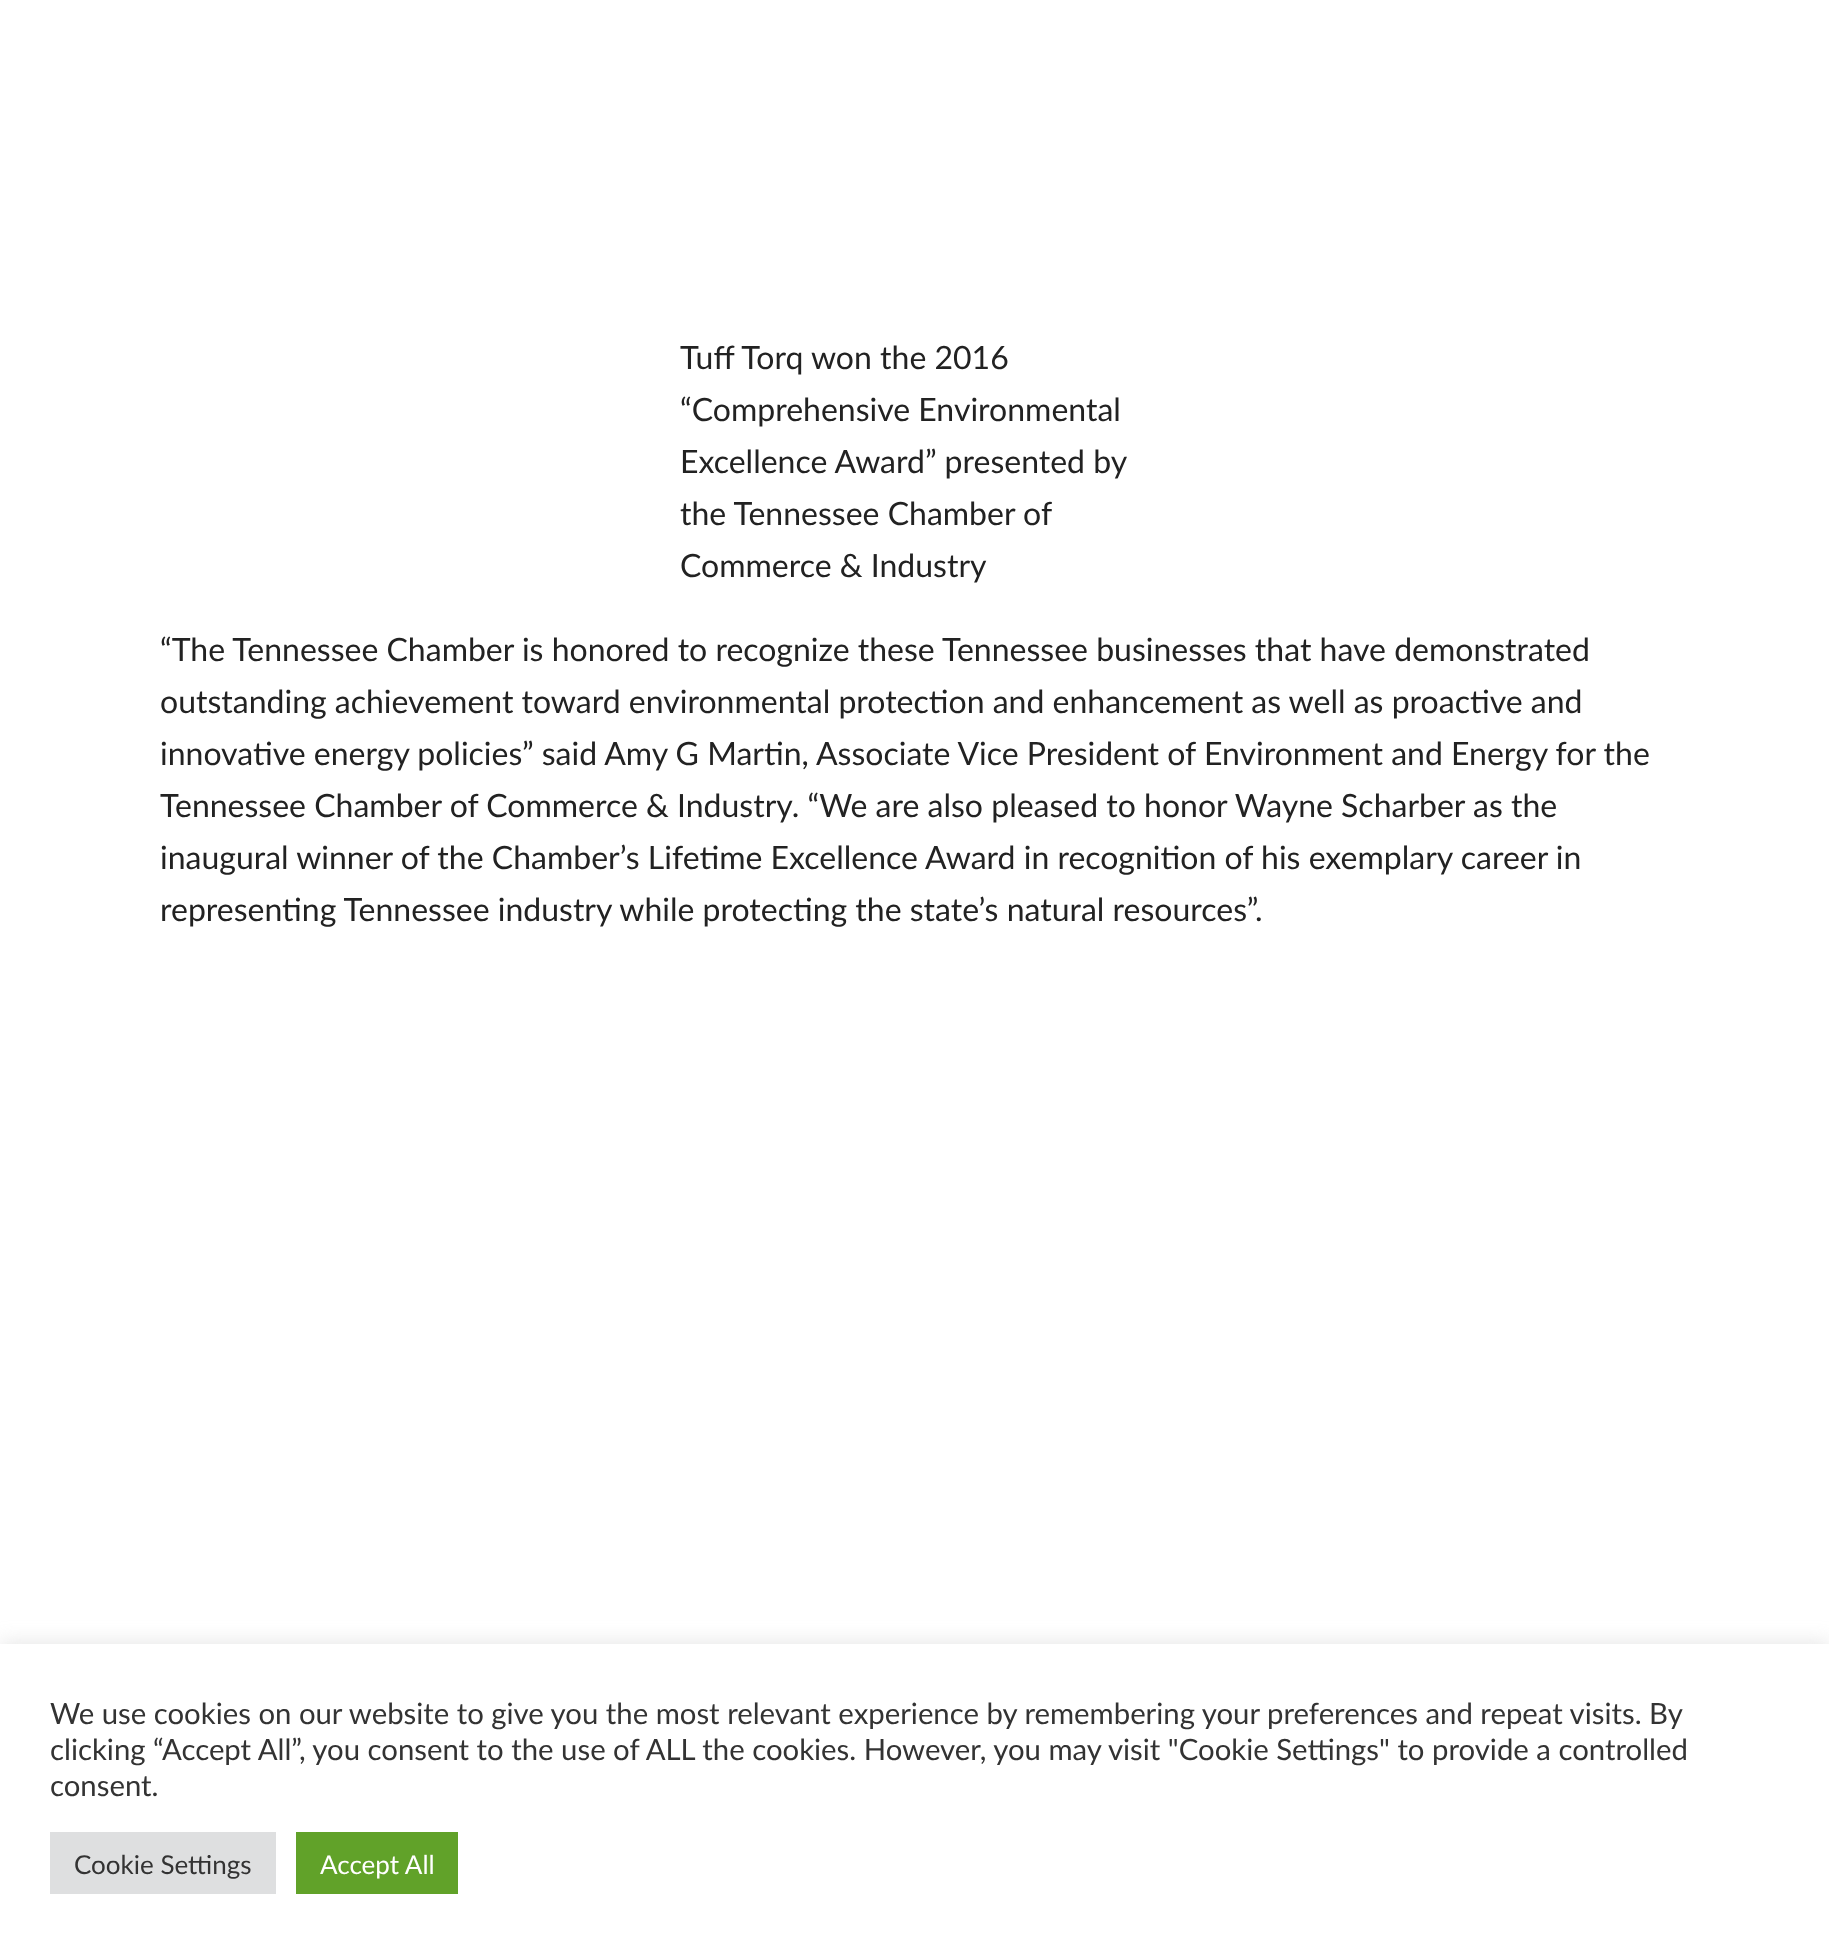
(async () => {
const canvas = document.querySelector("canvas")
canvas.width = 1829
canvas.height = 1953
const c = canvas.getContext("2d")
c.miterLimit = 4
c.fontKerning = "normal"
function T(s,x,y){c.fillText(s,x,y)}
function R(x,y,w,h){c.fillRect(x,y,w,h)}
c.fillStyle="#fff"
R(0,0,1829,1953)
c.font="32px Lato"
c.fillStyle="#222"
T("Tuff Torq won the 2016",680,369)
T("“Comprehensive Environmental",680,421)
T("Excellence Award” presented by",680,473)
T("the Tennessee Chamber of",680,525)
T("Commerce & Industry",680,577)
T("“The Tennessee Chamber is honored to recognize these Tennessee businesses that have demonstrated",160,661)
T("outstanding achievement toward environmental protection and enhancement as well as proactive and",160,713)
T("innovative energy policies” said Amy G Martin, Associate Vice President of Environment and Energy for the",160,765)
T("Tennessee Chamber of Commerce & Industry. “We are also pleased to honor Wayne Scharber as the",160,817)
T("inaugural winner of the Chamber’s Lifetime Excellence Award in recognition of his exemplary career in",160,869)
T("representing Tennessee industry while protecting the state’s natural resources”.",160,921)
c.fillStyle="#acabab4d"
c.filter="blur(10px)"
c.beginPath()
c.rect(0,1642,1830,310)
c.fill()
c.filter="none"
c.fillStyle="#fff"
R(0,1644,1829,309)
c.font="29.33px Lato"
c.fillStyle="#333"
T("We use cookies on our website to give you the most relevant experience by remembering your preferences and repeat visits. By",50,1724)
T("clicking “Accept All”, you consent to the use of ALL the cookies. However, you may visit \"Cookie Settings\" to provide a controlled",50,1760)
T("consent.",50,1796)
c.fillStyle="#dedfe0"
R(50,1832,226,62)
c.font="26px Lato"
c.fillStyle="#333"
T("Cookie Settings",74,1874)
c.fillStyle="#61a229"
R(296,1832,162,62)
c.fillStyle="#fff"
T("Accept All",320,1874)
})()
